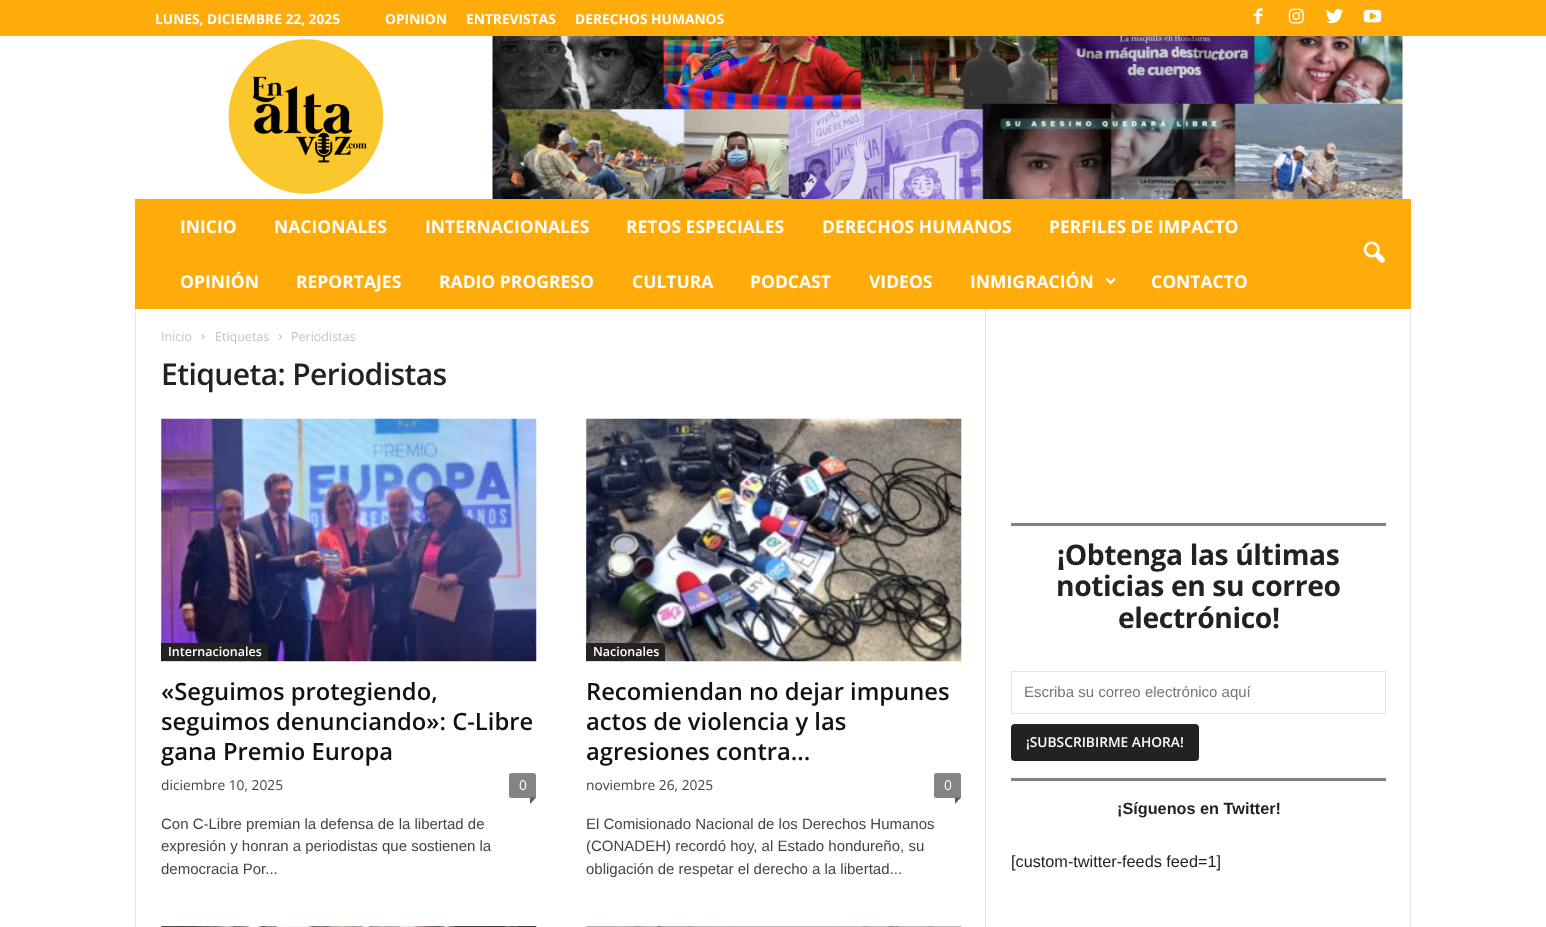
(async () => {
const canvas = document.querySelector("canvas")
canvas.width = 1546
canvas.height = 927
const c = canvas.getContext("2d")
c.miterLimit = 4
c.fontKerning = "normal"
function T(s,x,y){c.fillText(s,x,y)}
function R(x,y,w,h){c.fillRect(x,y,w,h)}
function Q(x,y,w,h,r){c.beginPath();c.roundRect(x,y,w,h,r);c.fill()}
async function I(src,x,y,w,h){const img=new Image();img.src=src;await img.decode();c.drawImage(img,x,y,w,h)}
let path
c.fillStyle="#fff"
R(0,0,1546,927)
c.fillStyle="#ffac0a"
R(0,0,1546,36)
c.font="bold 13.75px Open Sans"
c.fillStyle="#fff"
T("LUNES, DICIEMBRE 22, 2025",155,24)
T("OPINION",385,24)
T("ENTREVISTAS",466,24)
T("DERECHOS HUMANOS",575,24)
await I("1.png",1253,8,10,16)
await I("2.png",1288,8,16,16)
await I("3.png",1326,9,18,15)
await I("4.png",1363,9,19,14)
await I("5.png",228,39,156,156)
await I("6.png",492,36,911,163)
c.fillStyle="#ffac0a"
R(135,199,1276,110)
c.font="bold 17.5px Open Sans"
c.fillStyle="#fff"
T("INICIO",180,233)
T("NACIONALES",274,233)
T("INTERNACIONALES",425,233)
T("RETOS ESPECIALES",626,233)
T("DERECHOS HUMANOS",822,233)
T("PERFILES DE IMPACTO",1049,233)
T("OPINIÓN",180,288)
T("REPORTAJES",296,288)
T("RADIO PROGRESO",439,288)
T("CULTURA",632,288)
T("PODCAST",750,288)
T("VIDEOS",869,288)
T("INMIGRACIÓN",970,288)
await I("7.png",1105,277,11,8)
T("CONTACTO",1151,288)
await I("8.png",1363,241,22,22)
c.fillStyle="#e6e6e6"
R(135,309,1,618)
c.font="12.5px Open Sans"
c.fillStyle="#c3c3c3"
T("Inicio",161,341)
await I("9.png",201,334,4,6)
T("Etiquetas",215,341)
await I("10.png",278,334,4,6)
T("Periodistas",291,341)
c.letterSpacing="-0.6px"
c.font="600 30px Open Sans"
c.fillStyle="#222"
T("Etiqueta: Periodistas",161,385)
await I("11.png",161,418,376,244)
c.beginPath()
c.roundRect(161,643,107,18,[0,4,0,0])
c.fill()
c.letterSpacing="0px"
c.font="600 12.5px Open Sans"
c.fillStyle="#fff"
T("Internacionales",168,656)
c.font="600 23.75px Open Sans"
c.fillStyle="#111"
T("«Seguimos protegiendo,",161,700)
T("seguimos denunciando»: C-Libre",161,730)
T("gana Premio Europa",161,760)
c.font="13.75px Open Sans"
c.fillStyle="#444"
T("diciembre 10, 2025",161,790)
c.fillStyle="#848484"
c.beginPath()
c.roundRect(509,773,27,25,[2.5,2.5,0,2.5])
c.fill()
c.fillStyle="#fff"
T("0",519,790)
c.fillStyle="#5b5b5b"
path = new Path2D("M530 797.5h6l-6 6.5z")
c.fill(path)
c.font="15px Liberation Sans"
c.fillStyle="#444"
T("Con C-Libre premian la defensa de la libertad de",161,829)
T("expresión y honran a periodistas que sostienen la",161,851)
T("democracia Por...",161,874)
await I("12.png",586,418,376,244)
c.fillStyle="#222"
c.beginPath()
c.roundRect(586,643,79,18,[0,4,0,0])
c.fill()
c.font="600 12.5px Open Sans"
c.fillStyle="#fff"
T("Nacionales",593,656)
c.font="600 23.75px Open Sans"
c.fillStyle="#111"
T("Recomiendan no dejar impunes",586,700)
T("actos de violencia y las",586,730)
T("agresiones contra...",586,760)
c.font="13.75px Open Sans"
c.fillStyle="#444"
T("noviembre 26, 2025",586,790)
c.fillStyle="#848484"
c.beginPath()
c.roundRect(934,773,27,25,[2.5,2.5,0,2.5])
c.fill()
c.fillStyle="#fff"
T("0",944,790)
c.fillStyle="#5b5b5b"
path = new Path2D("M955 797.5h6l-6 6.5z")
c.fill(path)
c.font="15px Liberation Sans"
c.fillStyle="#444"
T("El Comisionado Nacional de los Derechos Humanos",586,829)
T("(CONADEH) recordó hoy, al Estado hondureño, su",586,851)
T("obligación de respetar el derecho a la libertad...",586,874)
await I("13.png",161,926,376,1)
await I("14.png",586,926,376,1)
c.fillStyle="#e6e6e6"
R(985,309,1,618)
c.fillStyle="#808080"
R(1011,523,375,3)
c.letterSpacing="-0.4px"
c.font="bold 28.25px Open Sans"
c.fillStyle="#222"
T("¡Obtenga las últimas",1057,565)
T("noticias en su correo",1056,596)
T("electrónico!",1118,628)
c.strokeStyle="#e6e6e6"
c.strokeRect(1011.5,671.5,374,42)
c.letterSpacing="0px"
c.font="15px Liberation Sans"
c.fillStyle="#757575"
T("Escriba su correo electrónico aquí",1024,697)
c.fillStyle="#222"
Q(1011,724,188,37,4)
c.font="600 13.75px Open Sans"
c.fillStyle="#fff"
T("¡SUBSCRIBIRME AHORA!",1026,747)
c.fillStyle="#808080"
R(1011,778,375,3)
c.font="bold 16.25px Liberation Sans"
c.fillStyle="#222"
T("¡Síguenos en Twitter!",1117,814)
c.font="16.25px Liberation Sans"
T("[custom-twitter-feeds feed=1]",1011,867)
c.fillStyle="#e6e6e6"
R(1410,309,1,618)
})()
